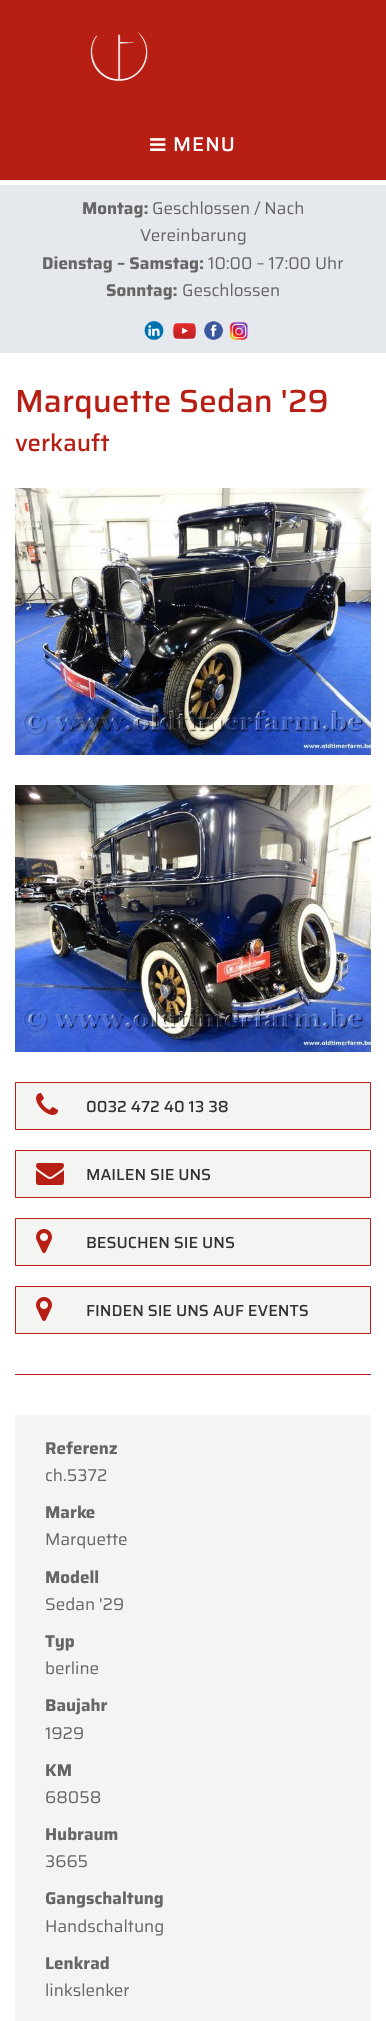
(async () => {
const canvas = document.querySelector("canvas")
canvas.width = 386
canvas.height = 2021
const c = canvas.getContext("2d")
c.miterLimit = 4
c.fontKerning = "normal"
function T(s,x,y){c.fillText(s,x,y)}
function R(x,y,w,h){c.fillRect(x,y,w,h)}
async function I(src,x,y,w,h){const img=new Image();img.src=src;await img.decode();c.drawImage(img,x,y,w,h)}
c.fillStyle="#fff"
R(0,0,386,2021)
c.fillStyle="#b81f14"
R(0,0,386,180)
await I("1.png",90,31,58,50)
await I("2.png",150,138,16,13)
c.letterSpacing="1px"
c.font="500 20px Saira"
c.fillStyle="#fff"
T("MENU",173,151)
c.fillStyle="#e5e8ed"
R(0,185,386,168)
c.letterSpacing="0px"
c.font="bold 17px Saira"
c.fillStyle="#666"
T("Montag:",82,214)
c.font="17px Saira"
T("Geschlossen / Nach",152,214)
T("Vereinbarung",140,241)
c.font="bold 17px Saira"
T("Dienstag – Samstag:",42,269)
c.font="17px Saira"
T("10:00 – 17:00 Uhr",208,269)
c.font="bold 17px Saira"
T("Sonntag:",106,296)
c.font="17px Saira"
T("Geschlossen",182,296)
await I("3.png",144,321,20,19)
await I("4.png",173,323,23,16)
await I("5.png",204,321,19,19)
await I("6.png",229,321,20,20)
c.font="500 32px Saira"
c.fillStyle="#b81f14"
T("Marquette Sedan '29",15,412)
c.font="500 24px Saira"
T("verkauft",15,451)
await I("7.png",15,488,356,267)
await I("8.png",15,785,356,267)
c.fillStyle="#f4f4f3"
c.beginPath()
c.rect(15.5,1082.5,355,47)
c.fill()
c.strokeStyle="#b81f14"
c.stroke()
await I("9.png",36,1093,22,22)
c.font="500 16px Saira"
c.fillStyle="#333"
T("0032 472 40 13 38",86,1112)
c.fillStyle="#f4f4f3"
c.beginPath()
c.rect(15.5,1150.5,355,47)
c.fill()
c.stroke()
await I("10.png",36,1163,28,22)
c.fillStyle="#333"
T("MAILEN SIE UNS",86,1180)
c.fillStyle="#f4f4f3"
c.beginPath()
c.rect(15.5,1218.5,355,47)
c.fill()
c.stroke()
await I("11.png",36,1229,16,24)
c.fillStyle="#333"
T("BESUCHEN SIE UNS",86,1248)
c.fillStyle="#f4f4f3"
c.beginPath()
c.rect(15.5,1286.5,355,47)
c.fill()
c.stroke()
await I("11.png",36,1297,16,24)
c.fillStyle="#333"
T("FINDEN SIE UNS AUF EVENTS",86,1316)
c.fillStyle="#b81f14"
R(15,1374,356,1)
c.fillStyle="#f4f4f3"
R(15,1415,356,606)
c.font="bold 17px Saira"
c.fillStyle="#666"
T("Referenz",45,1454)
c.font="17px Saira"
T("ch.5372",45,1481)
c.font="bold 17px Saira"
T("Marke",45,1518)
c.font="17px Saira"
T("Marquette",45,1545)
c.font="bold 17px Saira"
T("Modell",45,1583)
c.font="17px Saira"
T("Sedan '29",45,1610)
c.font="bold 17px Saira"
T("Typ",45,1647)
c.font="17px Saira"
T("berline",45,1674)
c.font="bold 17px Saira"
T("Baujahr",45,1711)
c.font="17px Saira"
T("1929",45,1739)
c.font="bold 17px Saira"
T("KM",45,1776)
c.font="17px Saira"
T("68058",45,1803)
c.font="bold 17px Saira"
T("Hubraum",45,1840)
c.font="17px Saira"
T("3665",45,1867)
c.font="bold 17px Saira"
T("Gangschaltung",45,1904)
c.font="17px Saira"
T("Handschaltung",45,1932)
c.font="bold 17px Saira"
T("Lenkrad",45,1969)
c.font="17px Saira"
T("linkslenker",45,1996)
})()
